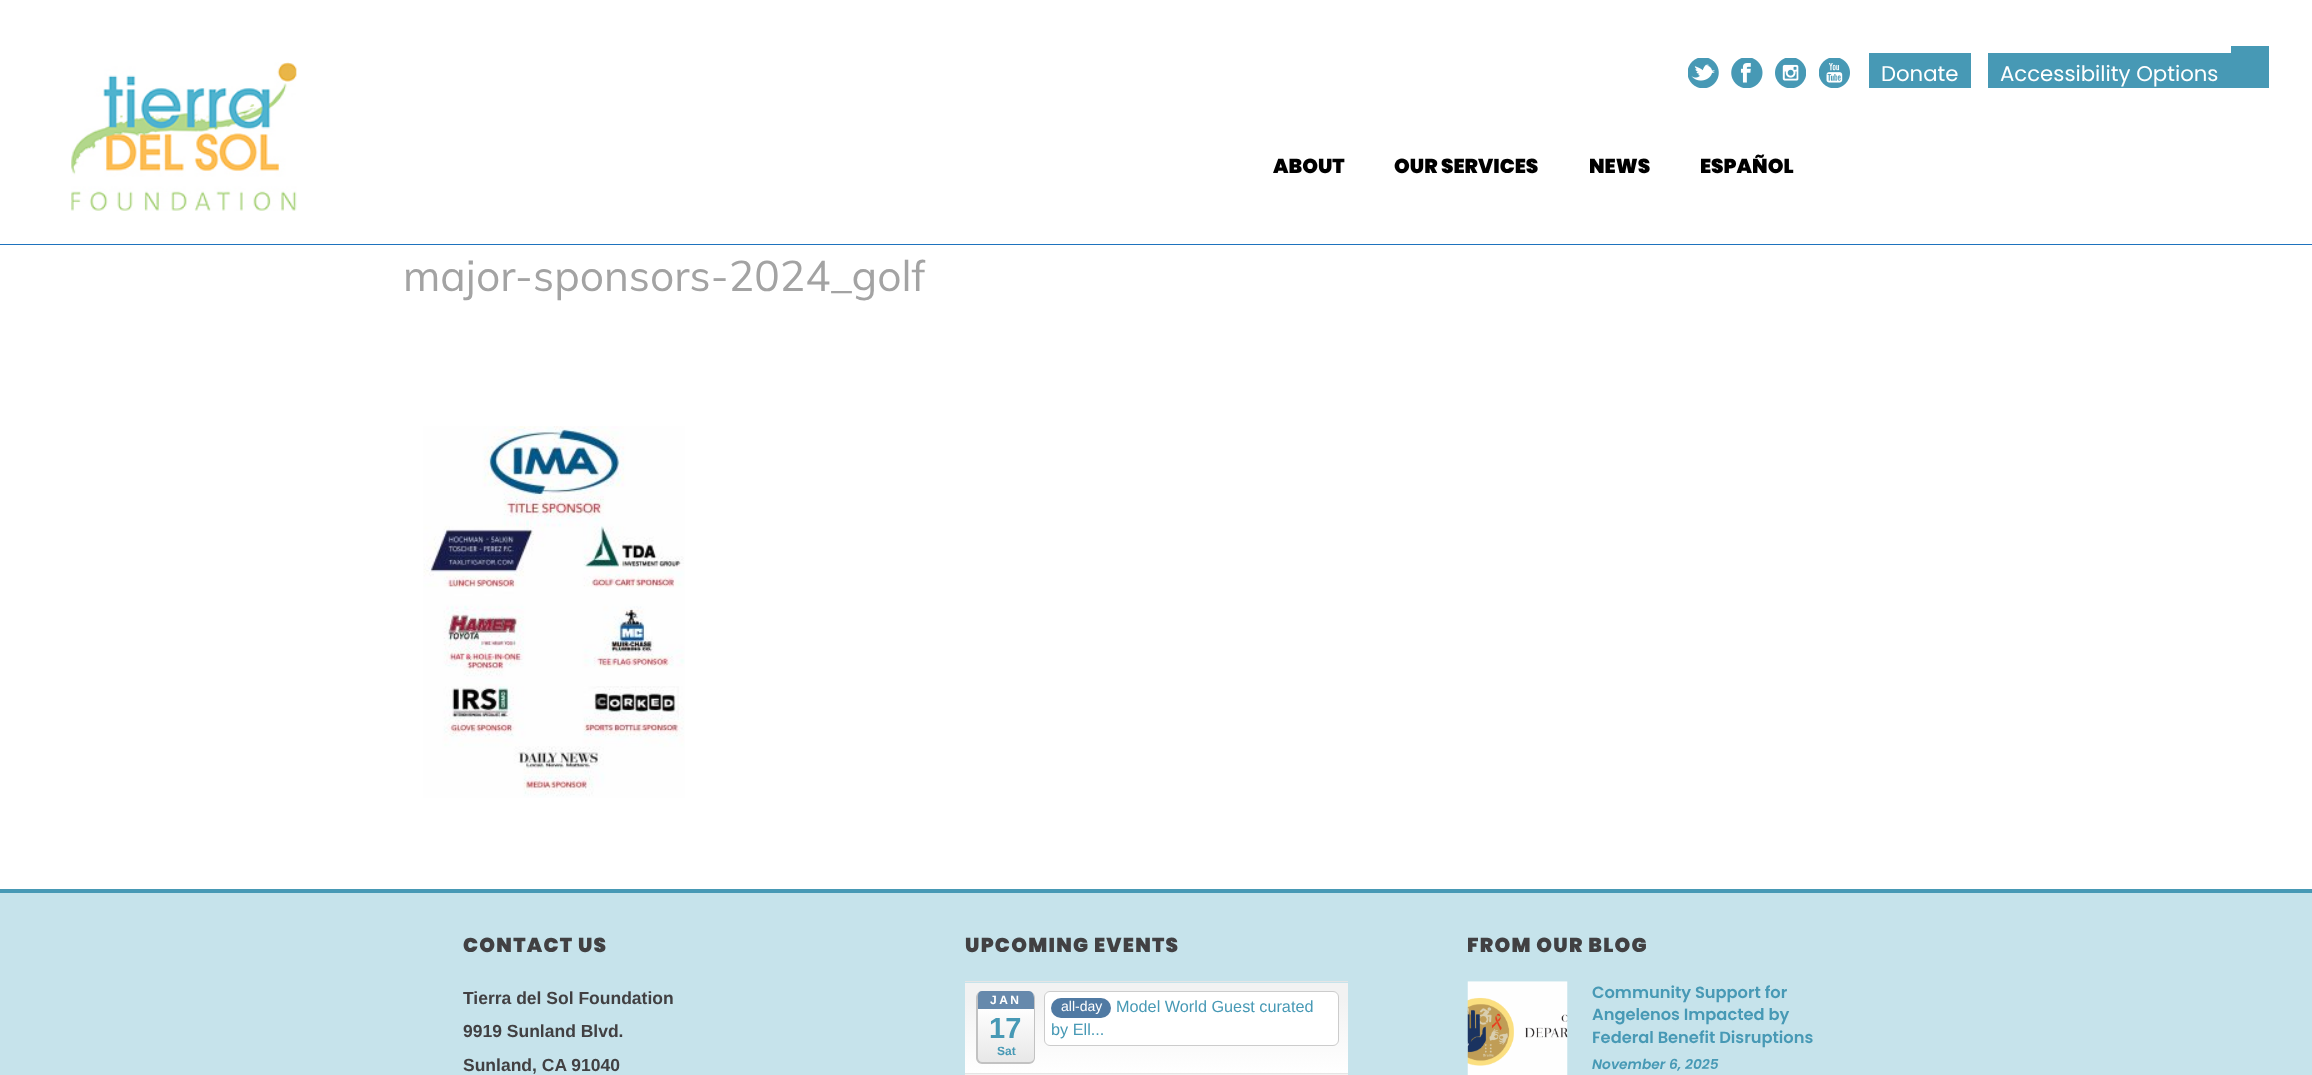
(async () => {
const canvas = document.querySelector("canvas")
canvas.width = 2312
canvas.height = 1075
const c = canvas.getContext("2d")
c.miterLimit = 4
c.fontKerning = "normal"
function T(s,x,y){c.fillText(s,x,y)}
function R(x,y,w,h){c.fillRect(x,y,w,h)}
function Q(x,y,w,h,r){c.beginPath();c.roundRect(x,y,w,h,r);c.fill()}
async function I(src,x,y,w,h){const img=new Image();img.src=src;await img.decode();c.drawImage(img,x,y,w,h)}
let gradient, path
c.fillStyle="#fff"
R(0,0,2312,1075)
await I("1.png",1688,58,31,30)
await I("2.png",1731,58,32,30)
await I("3.png",1775,58,31,30)
await I("4.png",1819,58,31,30)
c.fillStyle="#4799b5"
R(1869,53,102,35)
c.font="21.25px Poppins"
c.fillStyle="#fff"
T("Donate",1881,81)
c.fillStyle="#4799b5"
R(1988,53,243,35)
c.fillStyle="#fff"
T("Accessibility Options",2000,81)
c.fillStyle="#4799b5"
R(2231,46,38,42)
c.fillStyle="#1e73be"
R(0,244,2312,1)
await I("5.png",71,62,226,149)
c.font="900 20px Poppins"
c.fillStyle="#000"
T("ABOUT",1273,173)
T("OUR SERVICES",1394,173)
T("NEWS",1589,173)
T("ESPAÑOL",1700,173)
c.font="42.5px Muli"
c.fillStyle="#a3a3a3"
T("major-sponsors-2024_golf",403,291)
await I("6.png",423,426,262,372)
c.fillStyle="#c6e3eb"
R(0,893,2312,182)
c.fillStyle="#4799b5"
R(0,889,2312,4)
c.letterSpacing="1.25px"
c.font="900 20px Poppins"
c.fillStyle="#414042"
T("CONTACT US",463,952)
c.letterSpacing="0px"
c.font="bold 17.5px Liberation Sans"
T("Tierra del Sol Foundation",463,1004)
T("9919 Sunland Blvd.",463,1037)
T("Sunland, CA 91040",463,1071)
c.letterSpacing="1.25px"
c.font="900 20px Poppins"
T("UPCOMING EVENTS",965,952)
gradient = c.createLinearGradient(1156,983,1156,1073)
gradient.addColorStop(0,"#f2f2f2")
gradient.addColorStop(.18,"#f2f2f2")
gradient.addColorStop(1,"#fff")
c.fillStyle = gradient
R(965,983,383,90)
c.fillStyle="#e5e5e5"
R(965,981,383,1)
c.save()
c.beginPath()
c.roundRect(976,991,59,73,6)
c.clip()
gradient = c.createLinearGradient(1006,991,1006,1063)
gradient.addColorStop(0,"#fff")
gradient.addColorStop(.21,"#fff")
gradient.addColorStop(1,"#e7e7e7")
c.fillStyle = gradient
R(978,991,56,72)
c.restore()
c.fillStyle="#c2c2c2"
path = new Path2D("M982 991h47c3 0 6 3 6 7v60c0 3-3 6-6 6h-47c-3 0-6-3-6-6v-60c0-4 3-7 6-7zm0 0h47c3 0 5 3 5 7v60c0 2-2 4-5 4h-47c-2 0-4-2-4-4v-60c0-4 2-7 4-7z")
c.fill(path,"evenodd")
c.fillStyle="#6689ac"
path = new Path2D("M982 991h47c3 0 5 3 5 7v11h-56v-9c0-3-1-9 4-9z")
c.fill(path)
c.letterSpacing="2.5px"
c.font="bold 12px Liberation Sans"
c.fillStyle="#fff"
T("JAN",990,1004)
c.letterSpacing="0px"
c.font="bold 29px Liberation Sans"
c.fillStyle="#4799b5"
T("17",989,1038)
c.font="bold 12px Liberation Sans"
T("Sat",997,1055)
c.fillStyle="#fff"
c.beginPath()
c.roundRect(1044.5,991.5,294,54,5.5)
c.fill()
c.strokeStyle="#ccc"
c.stroke()
c.fillStyle="#507aa3"
Q(1051,998,60,20,10)
c.font="14px Liberation Sans"
c.fillStyle="#fff"
T("all-day",1061,1011)
c.font="16.25px Liberation Sans"
c.fillStyle="#4799b5"
T("Model World Guest curated",1116,1012)
T("by Ell...",1051,1035)
gradient = c.createLinearGradient(1156,1074,1156,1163)
gradient.addColorStop(0,"#f2f2f2")
gradient.addColorStop(.18,"#f2f2f2")
gradient.addColorStop(1,"#fff")
c.fillStyle = gradient
R(965,1074,383,1)
c.fillStyle="#e5e5e5"
R(965,1073,383,1)
c.letterSpacing="1.25px"
c.font="900 20px Poppins"
c.fillStyle="#414042"
T("FROM OUR BLOG",1467,952)
await I("7.png",1467,981,101,94)
c.letterSpacing="0px"
c.font="600 16.25px Poppins"
c.fillStyle="#4799b5"
T("Community Support for",1592,998)
T("Angelenos Impacted by",1592,1020)
T("Federal Benefit Disruptions",1592,1043)
c.font="italic 600 13.75px Poppins"
T("November 6, 2025",1592,1069)
})()
